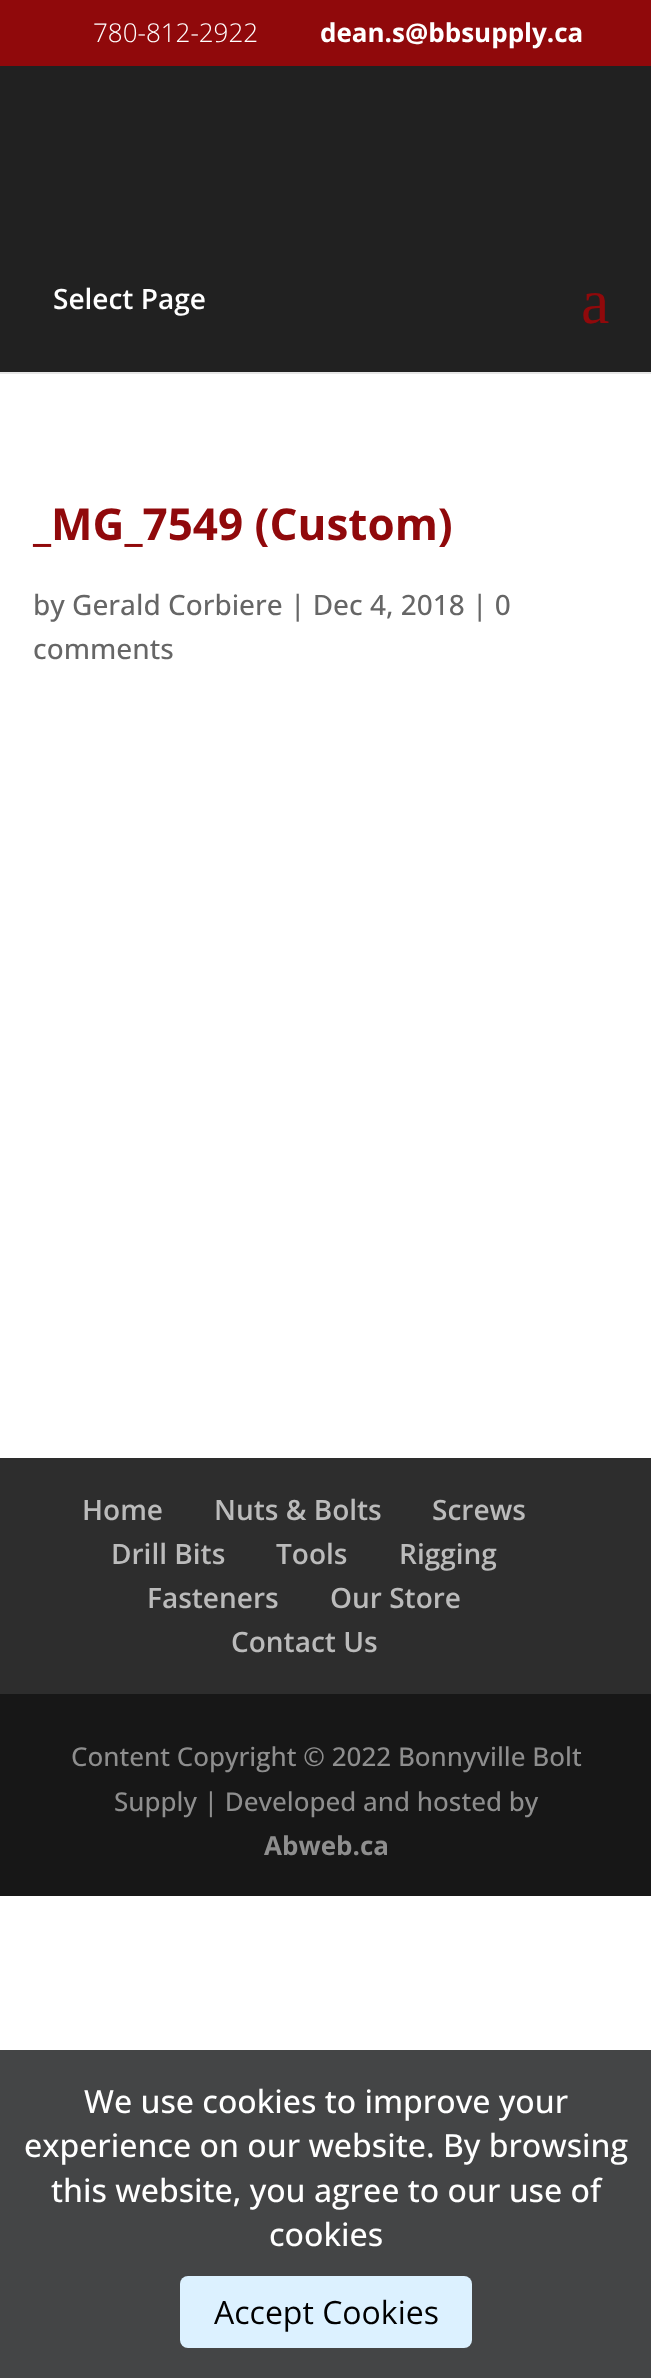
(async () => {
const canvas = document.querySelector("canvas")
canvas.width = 651
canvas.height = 2378
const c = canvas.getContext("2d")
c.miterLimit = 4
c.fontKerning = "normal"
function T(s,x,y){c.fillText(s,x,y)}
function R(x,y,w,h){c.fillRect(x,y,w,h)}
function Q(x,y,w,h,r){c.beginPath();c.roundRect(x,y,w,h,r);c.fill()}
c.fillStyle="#fff"
R(0,0,651,2378)
c.fillStyle="#90090b"
R(0,0,651,66)
c.font="300 26px Open Sans"
c.fillStyle="#fff"
T("780-812-2922",93,42)
c.font="bold 26px Open Sans"
T("dean.s@bbsupply.ca",320,42)
c.fillStyle="#e6e6e6"
R(0,372,651,2)
c.fillStyle="#212121"
R(0,66,651,306)
c.font="600 28px Open Sans"
c.fillStyle="#fff"
T("Select Page",53,309)
c.font="64px Liberation Serif"
c.fillStyle="#90090b"
T("a",581,323)
c.font="bold 44px Open Sans"
T("_MG_7549 (Custom)",33,540)
c.font="500 28px Open Sans"
c.fillStyle="#666"
T("by Gerald Corbiere | Dec 4, 2018 | 0",33,615)
T("comments",33,659)
c.fillStyle="#2d2d2d"
R(0,1458,651,236)
c.font="600 28px Open Sans"
c.fillStyle="#bbb"
T("Home",82,1520)
T("Nuts & Bolts",214,1520)
T("Screws",432,1520)
T("Drill Bits",111,1564)
T("Tools",276,1564)
T("Rigging",399,1564)
T("Fasteners",147,1608)
T("Our Store",330,1608)
T("Contact Us",231,1652)
c.fillStyle="#171717"
R(0,1694,651,202)
c.font="500 26px Open Sans"
c.fillStyle="#8e8e8e"
T("Content Copyright © 2022 Bonnyville Bolt",71,1766)
T("Supply | Developed and hosted by",114,1811)
c.font="bold 26px Open Sans"
T("Abweb.ca",264,1855)
c.fillStyle="#444546"
R(0,2050,651,328)
c.font="500 32px Open Sans"
c.fillStyle="#fff"
T("We use cookies to improve your",84,2113)
T("experience on our website. By browsing",24,2157)
T("this website, you agree to our use of",51,2202)
T("cookies",269,2246)
c.fillStyle="#dcf1ff"
Q(180,2276,292,72,8)
c.font="32px Open Sans"
c.fillStyle="#000"
T("Accept Cookies",214,2324)
})()
